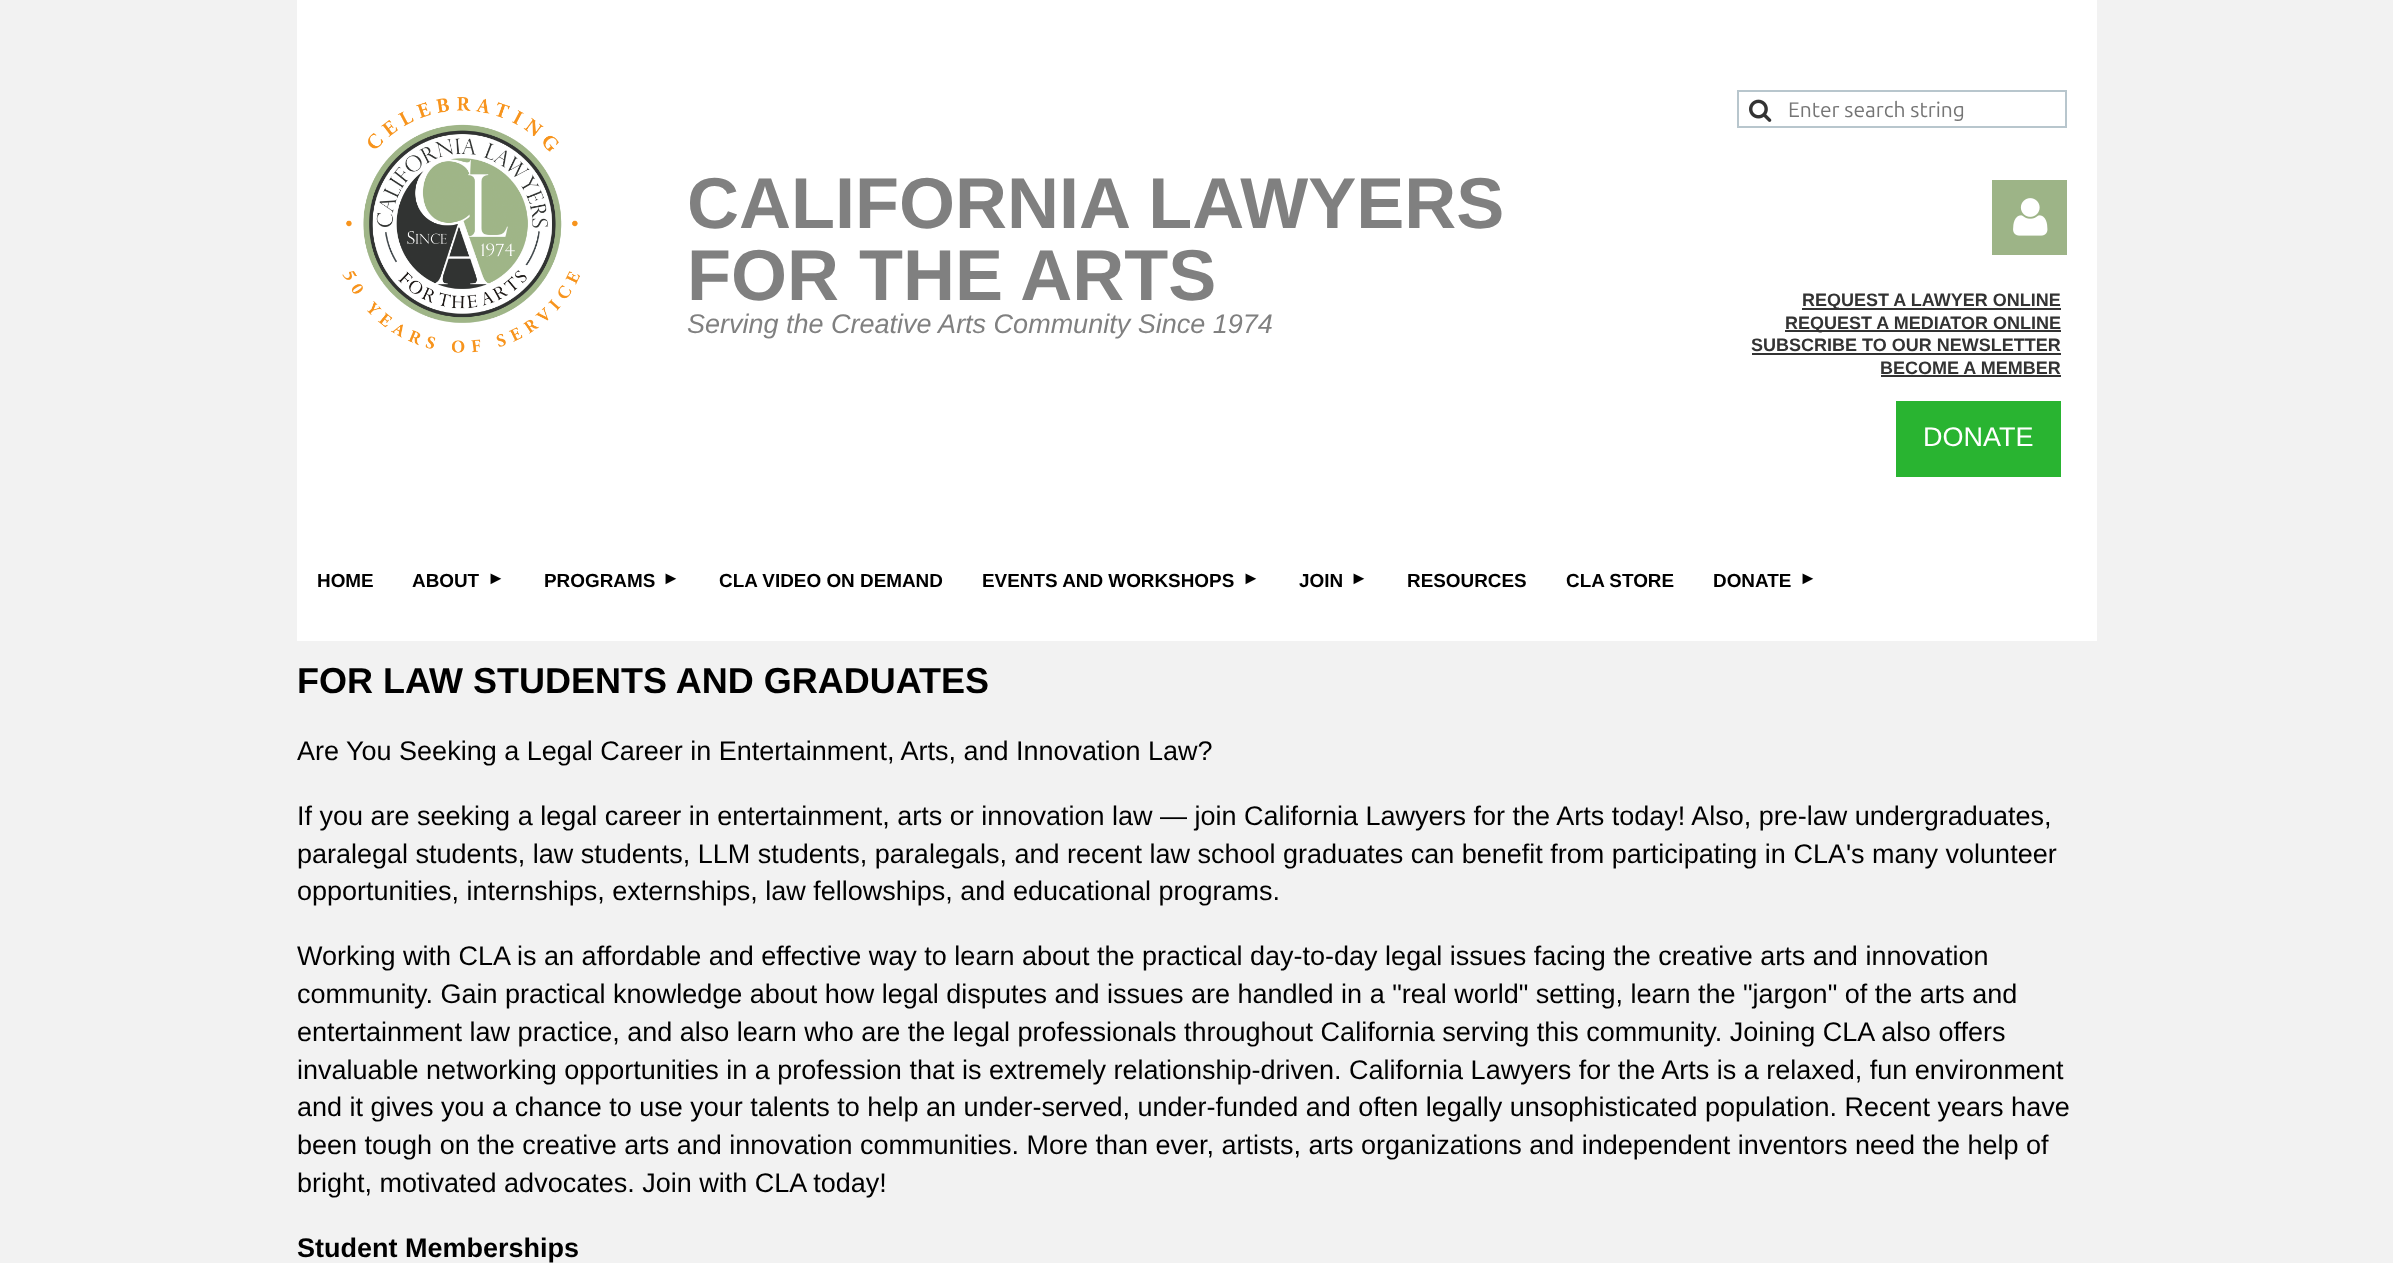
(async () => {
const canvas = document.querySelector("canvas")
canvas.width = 2393
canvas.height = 1263
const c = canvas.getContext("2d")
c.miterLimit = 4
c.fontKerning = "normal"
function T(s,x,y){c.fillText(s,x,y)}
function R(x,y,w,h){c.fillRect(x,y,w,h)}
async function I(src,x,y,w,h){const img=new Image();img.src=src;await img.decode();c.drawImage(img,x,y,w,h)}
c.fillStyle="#f2f2f2"
R(0,0,2393,1263)
c.fillStyle="#fff"
R(297,0,1800,641)
await I("1.png",342,97,238,256)
c.font="bold 72px Liberation Sans"
c.fillStyle="#808080"
T("CALIFORNIA LAWYERS",687,228)
T("FOR THE ARTS",687,300)
c.font="italic 27px Liberation Sans"
T("Serving the Creative Arts Community Since 1974",687,333)
c.strokeStyle="#b8c6cd"
c.lineWidth=2
c.strokeRect(1738,91,328,36)
await I("2.png",1749,99,23,23)
c.font="21px Ubuntu"
c.fillStyle="#757575"
T("Enter search string",1788,117)
c.fillStyle="#9db487"
R(1992,180,75,75)
await I("3.png",2013,198,35,38)
c.fillStyle="#333"
R(1802,308,259,2)
c.font="bold 18px Liberation Sans"
T("REQUEST A LAWYER ONLINE",1802,306)
R(1785,330,276,2)
T("REQUEST A MEDIATOR ONLINE",1785,329)
T("SUBSCRIBE TO OUR NEWSLETTER",1751,351)
R(1752,353,309,2)
T("BECOME A MEMBER",1880,374)
R(1881,375,180,2)
c.fillStyle="#29b431"
R(1896,401,165,76)
c.font="27px Liberation Sans"
c.fillStyle="#fff"
T("DONATE",1923,446)
c.font="bold 18.9px Liberation Sans"
c.fillStyle="#000"
T("HOME",317,587)
T("ABOUT",412,587)
c.font="18px Liberation Sans"
T("►",487,584)
c.font="bold 18.9px Liberation Sans"
T("PROGRAMS",544,587)
c.font="18px Liberation Sans"
T("►",662,584)
c.font="bold 18.9px Liberation Sans"
T("CLA VIDEO ON DEMAND",719,587)
T("EVENTS AND WORKSHOPS",982,587)
c.font="18px Liberation Sans"
T("►",1242,584)
c.font="bold 18.9px Liberation Sans"
T("JOIN",1299,587)
c.font="18px Liberation Sans"
T("►",1350,584)
c.font="bold 18.9px Liberation Sans"
T("RESOURCES",1407,587)
T("CLA STORE",1566,587)
T("DONATE",1713,587)
c.font="18px Liberation Sans"
T("►",1799,584)
c.font="bold 36px Liberation Sans"
T("FOR LAW STUDENTS AND GRADUATES",297,693)
c.font="27px Liberation Sans"
T("Are You Seeking a Legal Career in Entertainment, Arts, and Innovation Law?",297,760)
T("If you are seeking a legal career in entertainment, arts or innovation law — join California Lawyers for the Arts today! Also, pre-law undergraduates,",297,825)
T("paralegal students, law students, LLM students, paralegals, and recent law school graduates can benefit from participating in CLA's many volunteer",297,863)
T("opportunities, internships, externships, law fellowships, and educational programs.",297,900)
T("Working with CLA is an affordable and effective way to learn about the practical day-to-day legal issues facing the creative arts and innovation",297,965)
T("community. Gain practical knowledge about how legal disputes and issues are handled in a \"real world\" setting, learn the \"jargon\" of the arts and",297,1003)
T("entertainment law practice, and also learn who are the legal professionals throughout California serving this community. Joining CLA also offers",297,1041)
T("invaluable networking opportunities in a profession that is extremely relationship-driven. California Lawyers for the Arts is a relaxed, fun environment",297,1079)
T("and it gives you a chance to use your talents to help an under-served, under-funded and often legally unsophisticated population. Recent years have",297,1116)
T("been tough on the creative arts and innovation communities. More than ever, artists, arts organizations and independent inventors need the help of",297,1154)
T("bright, motivated advocates. Join with CLA today!",297,1192)
c.font="bold 27px Liberation Sans"
T("Student Memberships",297,1257)
})()
